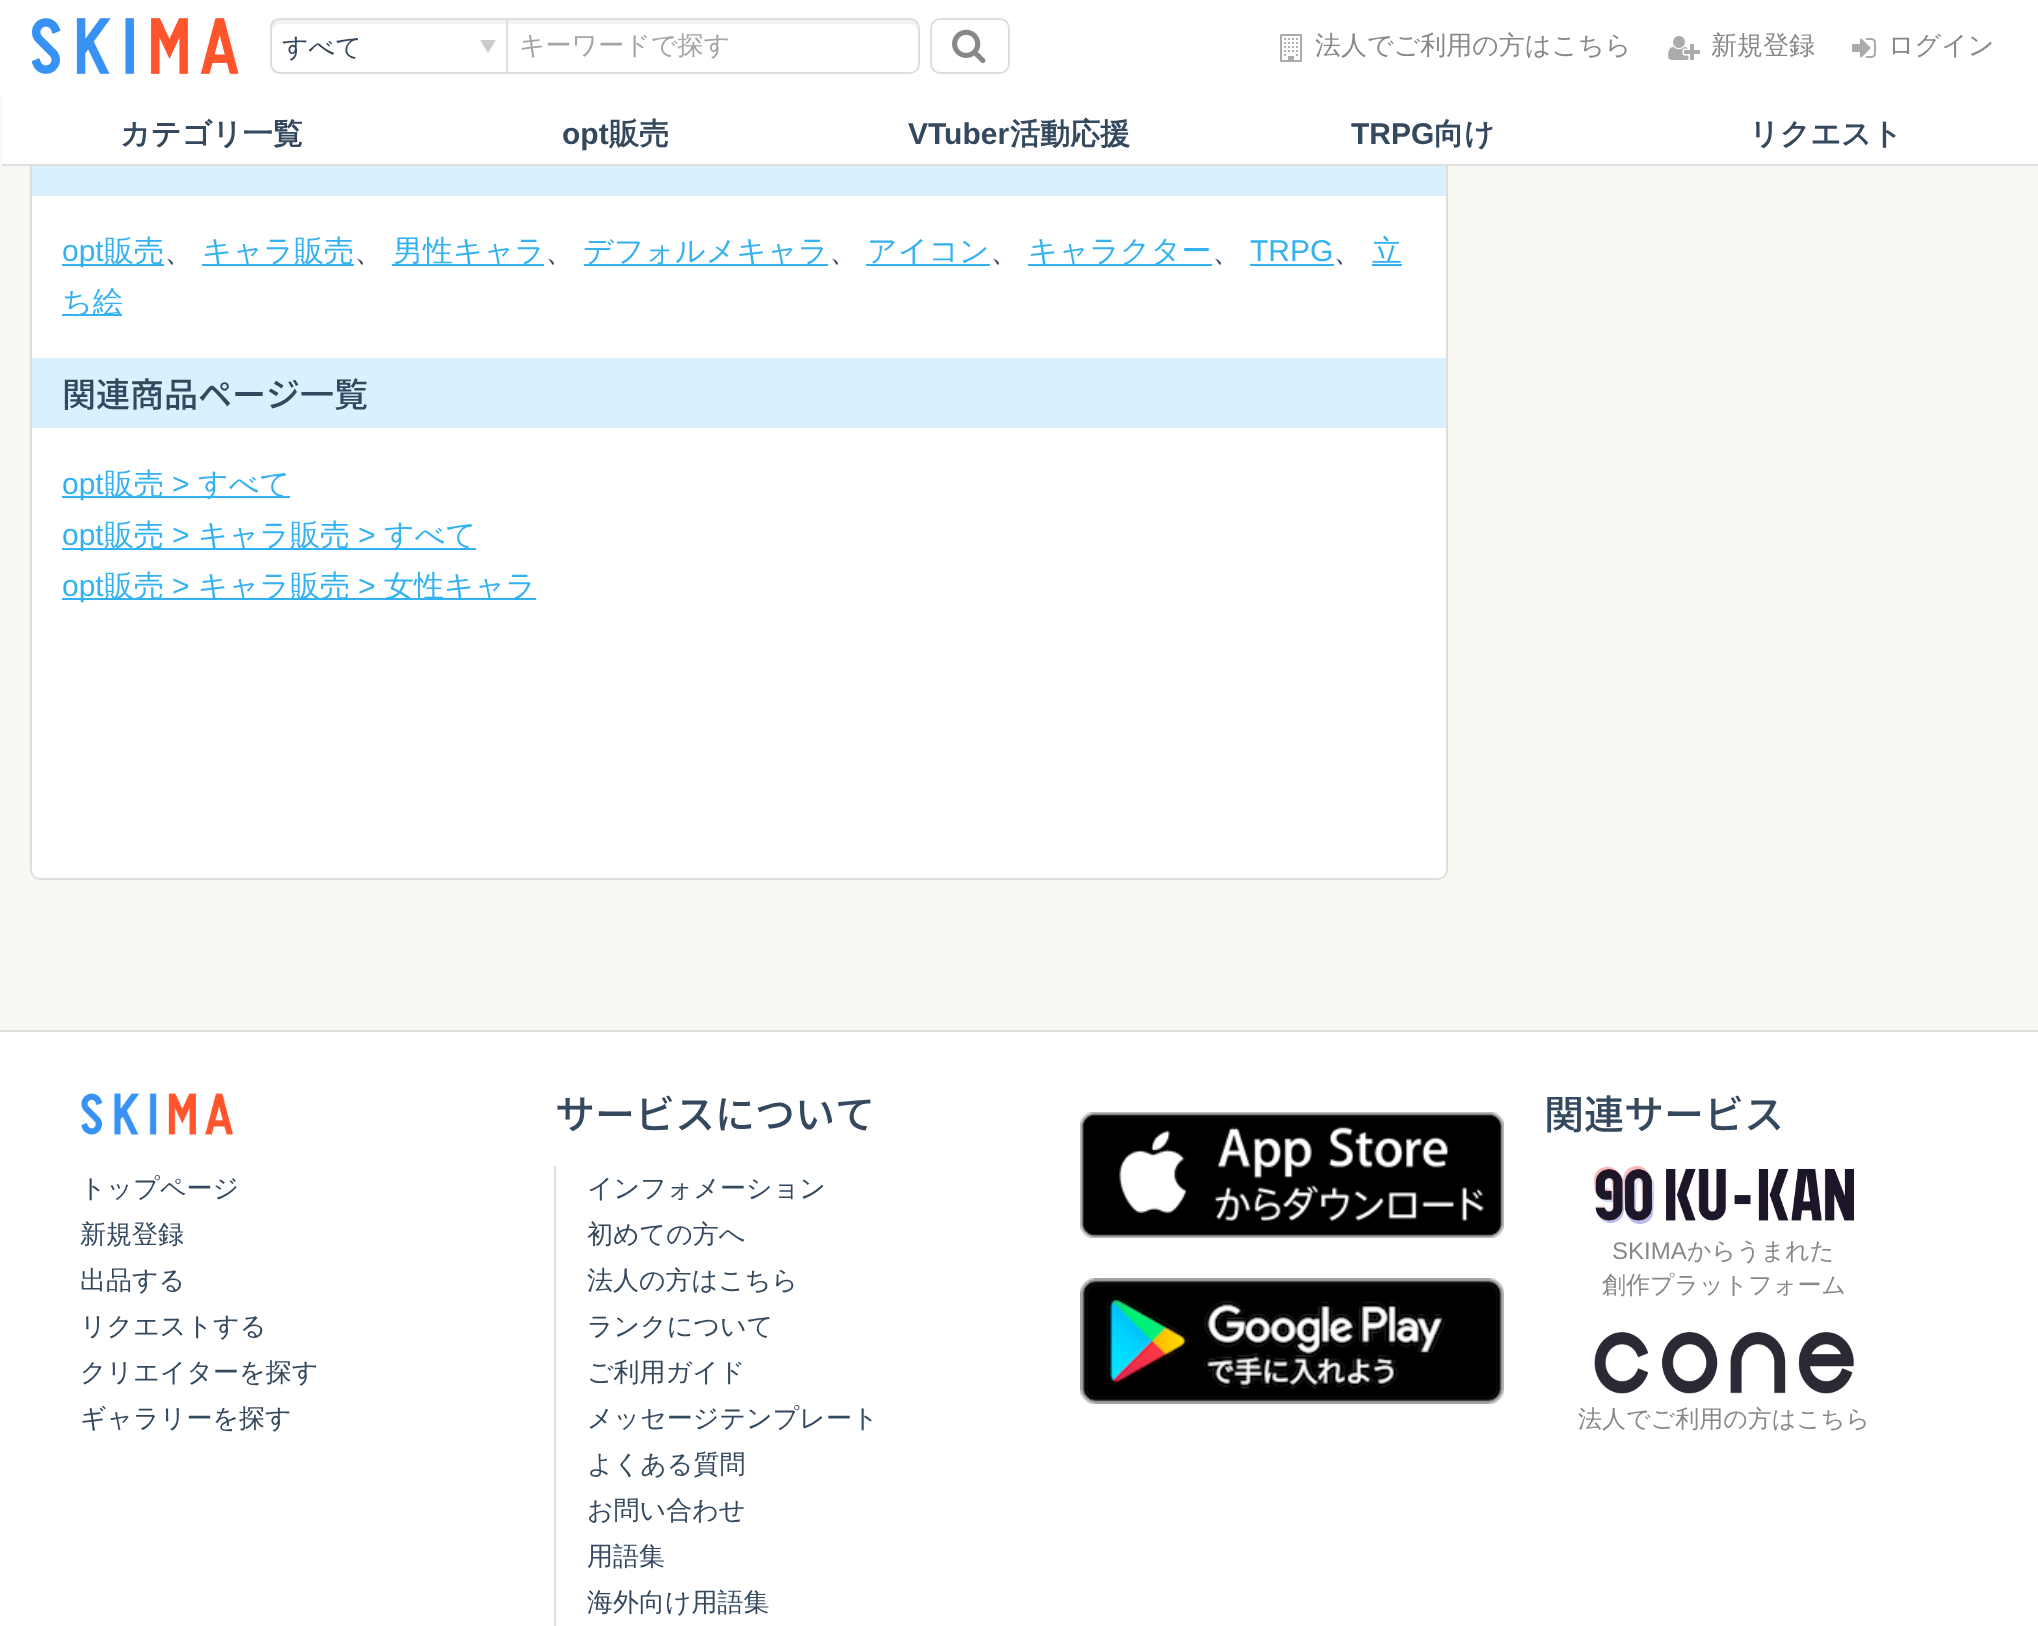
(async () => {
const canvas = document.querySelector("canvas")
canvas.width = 2038
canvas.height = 1626
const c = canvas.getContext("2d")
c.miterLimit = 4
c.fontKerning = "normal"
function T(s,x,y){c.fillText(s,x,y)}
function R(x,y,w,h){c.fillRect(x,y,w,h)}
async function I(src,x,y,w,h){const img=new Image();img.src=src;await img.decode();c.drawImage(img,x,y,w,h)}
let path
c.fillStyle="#fff"
R(0,0,2038,1626)
c.fillStyle="#f9f8f2"
R(0,94,2038,936)
c.fillStyle="#fff"
c.beginPath()
c.roundRect(31,-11,1416,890,9)
c.fill()
c.strokeStyle="#dedede"
c.lineWidth=2
c.stroke()
R(30,0,1418,94)
await I("1.png",31,18,208,56)
c.fillStyle="#ccc"
path = new Path2D("M488 53l-8-13h16z")
c.fill(path)
c.fillStyle="#f2f2f2"
path = new Path2D("M280 24h226v-4h-226c-4 0-8 4-8 8v4c0-4 4-8 8-8z")
c.fill(path)
c.fillStyle="#dedede"
path = new Path2D("M280 18h226v56h-226c-6 0-10-4-10-10v-36c0-6 4-10 10-10zm0 2h226v52h-226c-4 0-8-4-8-8v-36c0-4 4-8 8-8z")
c.fill(path,"evenodd")
c.font="500 26px WenQuanYi Zen Hei"
c.fillStyle="#34495e"
T("すべて",282,56)
c.fillStyle="#f2f2f2"
path = new Path2D("M508 24h402c4 0 8 4 8 8c0-6-1-12-8-12h-402z")
c.fill(path)
c.beginPath()
c.roundRect(507,19,412,54,[0,9,9,0])
c.stroke()
c.fillStyle="#a4a4a4"
T("キーワードで探す",519,54)
c.beginPath()
c.roundRect(931,19,78,54,9)
c.stroke()
await I("2.png",952,29,34,35)
await I("3.png",1280,34,22,28)
c.fillStyle="#888"
T("法人でご利用の方はこちら",1315,54)
await I("4.png",1668,36,32,24)
T("新規登録",1711,54)
await I("5.png",1852,38,24,20)
T("ログイン",1888,54)
c.fillStyle="#fff"
R(2,94,2036,70)
c.fillStyle="#dedede"
R(2,164,2036,2)
c.font="bold 30px WenQuanYi Zen Hei"
c.fillStyle="#34495e"
T("カテゴリ一覧",120,144)
c.font="bold 30px Liberation Sans"
T("opt",562,144)
c.font="bold 30px WenQuanYi Zen Hei"
T("販売",609,144)
c.font="bold 30px Liberation Sans"
T("VTuber",908,144)
c.font="bold 30px WenQuanYi Zen Hei"
T("活動応援",1010,144)
c.font="bold 30px Liberation Sans"
T("TRPG",1351,144)
c.font="bold 30px WenQuanYi Zen Hei"
T("向け",1434,144)
T("リクエスト",1749,144)
c.fillStyle="#d9f0ff"
R(32,166,1414,30)
c.fillStyle="#33b1f1"
R(62,264,102,2)
c.font="30px Liberation Sans"
T("opt",62,261)
c.font="500 30px WenQuanYi Zen Hei"
T("販売",104,261)
c.fillStyle="#34495e"
T("、",164,261)
c.fillStyle="#33b1f1"
R(202,264,152,2)
T("キャラ販売",202,261)
c.fillStyle="#34495e"
T("、",354,261)
c.fillStyle="#33b1f1"
R(392,264,152,2)
T("男性キャラ",393,261)
c.fillStyle="#34495e"
T("、",545,261)
c.fillStyle="#33b1f1"
R(584,264,244,2)
T("デフォルメキャラ",583,261)
c.fillStyle="#34495e"
T("、",829,261)
c.fillStyle="#33b1f1"
R(866,264,124,2)
T("アイコン",867,261)
c.fillStyle="#34495e"
T("、",990,261)
c.fillStyle="#33b1f1"
R(1028,264,184,2)
T("キャラクター",1028,261)
c.fillStyle="#34495e"
T("、",1212,261)
c.font="30px Liberation Sans"
c.fillStyle="#33b1f1"
T("TRPG",1250,261)
R(1250,264,84,2)
c.font="500 30px WenQuanYi Zen Hei"
c.fillStyle="#34495e"
T("、",1333,261)
c.fillStyle="#33b1f1"
T("立",1372,261)
R(1372,264,30,2)
R(62,314,60,2)
T("ち絵",62,312)
c.fillStyle="#d9f0ff"
R(32,358,1414,70)
c.font="500 34px Noto Sans JP"
c.fillStyle="#34495e"
T("関連商品ページ一覧",62,407)
c.fillStyle="#33b1f1"
R(62,496,228,2)
c.font="30px Liberation Sans"
T("opt",62,494)
c.font="500 30px WenQuanYi Zen Hei"
T("販売",104,494)
c.font="30px Liberation Sans"
T(">",172,494)
c.font="500 30px WenQuanYi Zen Hei"
T("すべて",198,494)
R(62,548,414,2)
c.font="30px Liberation Sans"
T("opt",62,545)
c.font="500 30px WenQuanYi Zen Hei"
T("販売",104,545)
c.font="30px Liberation Sans"
T(">",172,545)
c.font="500 30px WenQuanYi Zen Hei"
T("キャラ販売",198,545)
c.font="30px Liberation Sans"
T(">",358,545)
c.font="500 30px WenQuanYi Zen Hei"
T("すべて",384,545)
R(62,598,474,2)
c.font="30px Liberation Sans"
T("opt",62,596)
c.font="500 30px WenQuanYi Zen Hei"
T("販売",104,596)
c.font="30px Liberation Sans"
T(">",172,596)
c.font="500 30px WenQuanYi Zen Hei"
T("キャラ販売",198,596)
c.font="30px Liberation Sans"
T(">",358,596)
c.font="500 30px WenQuanYi Zen Hei"
T("女性キャラ",384,596)
c.fillStyle="#dedede"
R(0,1030,2038,2)
await I("6.png",81,1093,152,42)
c.font="500 26px WenQuanYi Zen Hei"
c.fillStyle="#34495e"
T("トップページ",80,1197)
T("新規登録",80,1243)
T("出品する",80,1289)
T("リクエストする",80,1335)
T("クリエイターを探す",80,1381)
T("ギャラリーを探す",80,1427)
c.font="500 40px Noto Sans JP"
T("サービスについて",555,1129)
c.fillStyle="#dedede"
R(554,1166,2,460)
c.font="500 26px WenQuanYi Zen Hei"
c.fillStyle="#34495e"
T("インフォメーション",587,1197)
T("初めての方へ",587,1243)
T("法人の方はこちら",587,1289)
T("ランクについて",587,1335)
T("ご利用ガイド",587,1381)
T("メッセージテンプレート",587,1427)
T("よくある質問",587,1473)
T("お問い合わせ",587,1519)
T("用語集",587,1565)
T("海外向け用語集",587,1611)
await I("7.png",1080,1112,424,126)
await I("8.png",1080,1278,424,126)
c.font="500 40px Noto Sans JP"
T("関連サービス",1544,1129)
await I("9.png",1594,1166,260,58)
c.font="24px Liberation Sans"
c.fillStyle="#888"
T("SKIMA",1612,1259)
c.font="500 24px WenQuanYi Zen Hei"
T("からうまれた",1687,1259)
T("創作プラットフォーム",1602,1293)
await I("10.png",1594,1332,260,62)
T("法人でご利用の方はこちら",1578,1427)
})()
